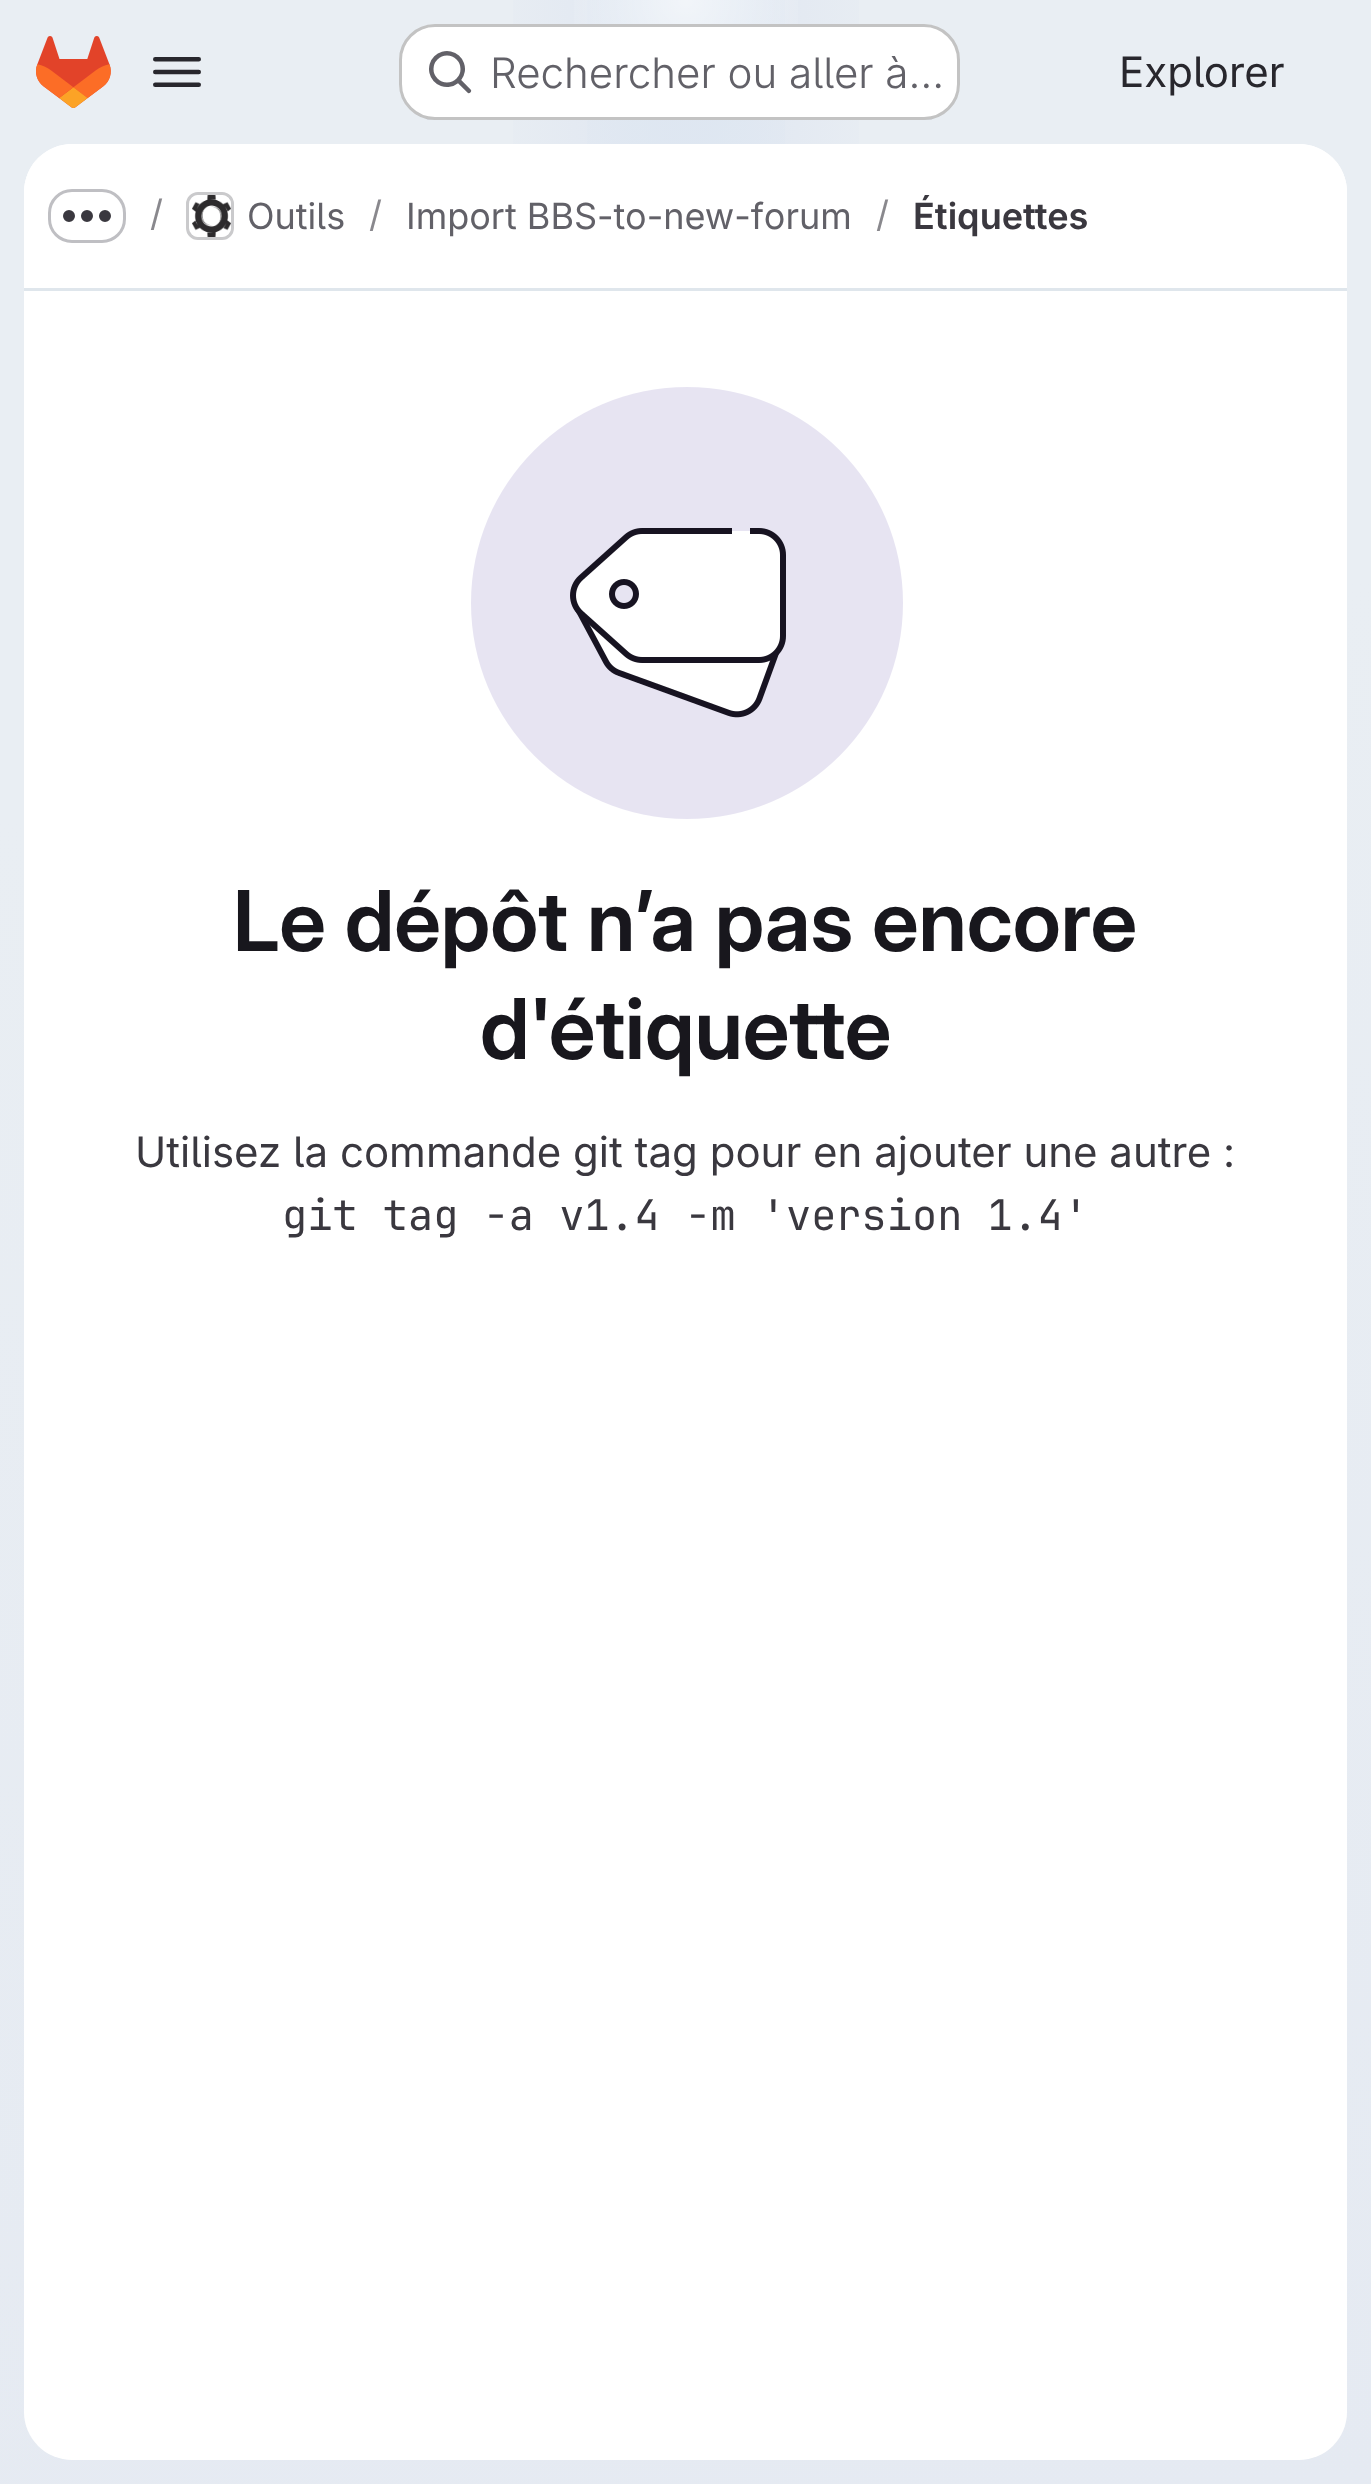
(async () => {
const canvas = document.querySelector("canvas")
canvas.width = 1371
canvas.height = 2484
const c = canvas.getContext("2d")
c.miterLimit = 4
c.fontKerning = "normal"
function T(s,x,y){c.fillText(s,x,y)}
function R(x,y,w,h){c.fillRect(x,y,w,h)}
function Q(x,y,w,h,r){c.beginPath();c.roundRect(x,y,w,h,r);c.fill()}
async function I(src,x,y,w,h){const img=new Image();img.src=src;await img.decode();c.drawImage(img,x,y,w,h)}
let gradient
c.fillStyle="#fff"
R(0,0,1371,2484)
gradient = c.createLinearGradient(919,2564,452,-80)
gradient.addColorStop(0,"#e5eaf2")
gradient.addColorStop(.7,"#e9eef3")
c.fillStyle = gradient
R(0,0,1371,2484)
gradient = c.createRadialGradient(686,0,0,686,0,686)
gradient.addColorStop(0,"#dee5f1")
gradient.addColorStop(.31,"#dee5f100")
c.fillStyle = gradient
c.beginPath()
c.rect(513,0,346,144)
c.save()
c.clip()
c.scale(1,2484 / 686)
c.fillRect(0,0,1371,686)
c.restore()
gradient = c.createRadialGradient(686,0,0,686,0,686)
gradient.addColorStop(0,"#dee7f1")
gradient.addColorStop(.22,"#dee7f100")
c.fillStyle = gradient
c.beginPath()
c.rect(587,0,198,144)
c.save()
c.clip()
c.scale(1,2484 / 686)
c.fillRect(0,0,1371,686)
c.restore()
gradient = c.createRadialGradient(686,0,0,686,0,2577)
gradient.addColorStop(0,"#ffffff99")
gradient.addColorStop(.05,"#ffffff00")
c.fillStyle = gradient
R(574,0,224,24)
await I("1.png",36,36,75,72)
await I("2.png",153,57,48,30)
c.fillStyle="#fff"
Q(399,24,561,96,36)
c.beginPath()
c.roundRect(400.5,25.5,558,93,34.5)
c.strokeStyle="#0505063d"
c.lineWidth=3
c.stroke()
await I("3.png",429,51,43,43)
c.font="300 42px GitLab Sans"
c.fillStyle="#626168"
T("Rechercher ou aller à…",490,88)
c.font="42px GitLab Sans"
c.fillStyle="#28272d"
T("Explorer",1119,87)
c.fillStyle="#fff"
Q(24,144,1323,2316,48)
c.beginPath()
c.roundRect(24,144,1323,147,[48,48,0,0])
c.fill()
c.fillStyle="#dfe6ec"
R(24,288,1323,3)
c.beginPath()
c.roundRect(49.5,190.5,75,51,22.5)
c.strokeStyle="#bfbfc3"
c.stroke()
await I("4.png",63,210,48,12)
c.font="36px GitLab Sans"
c.fillStyle="#89888d"
T("/",150,226)
c.beginPath()
c.roundRect(187.5,193.5,45,45,10.5)
c.strokeStyle="#dcdcde"
c.stroke()
await I("5.png",192,195,39,42)
c.beginPath()
c.roundRect(187.5,193.5,45,45,10.5)
c.strokeStyle="#05050614"
c.stroke()
c.fillStyle="#626168"
T("Outils",247,229)
c.fillStyle="#89888d"
T("/",369,227)
c.fillStyle="#626168"
T("Import BBS-to-new-forum",406,229)
c.fillStyle="#89888d"
T("/",876,227)
c.font="600 36px 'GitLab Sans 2'"
c.fillStyle="#3a383f"
T("Étiquettes",913,229)
await I("6.png",471,387,432,432)
c.font="600 84px GitLab Sans"
c.fillStyle="#18171d"
T("Le dépôt n’a pas encore",233,951)
T("d'étiquette",480,1059)
c.font="42px GitLab Sans"
c.fillStyle="#3a383f"
T("Utilisez la commande git tag pour en ajouter une autre :",135,1167)
c.font="42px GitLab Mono"
T("git tag -a v1.4 -m 'version 1.4'",282,1230)
})()
